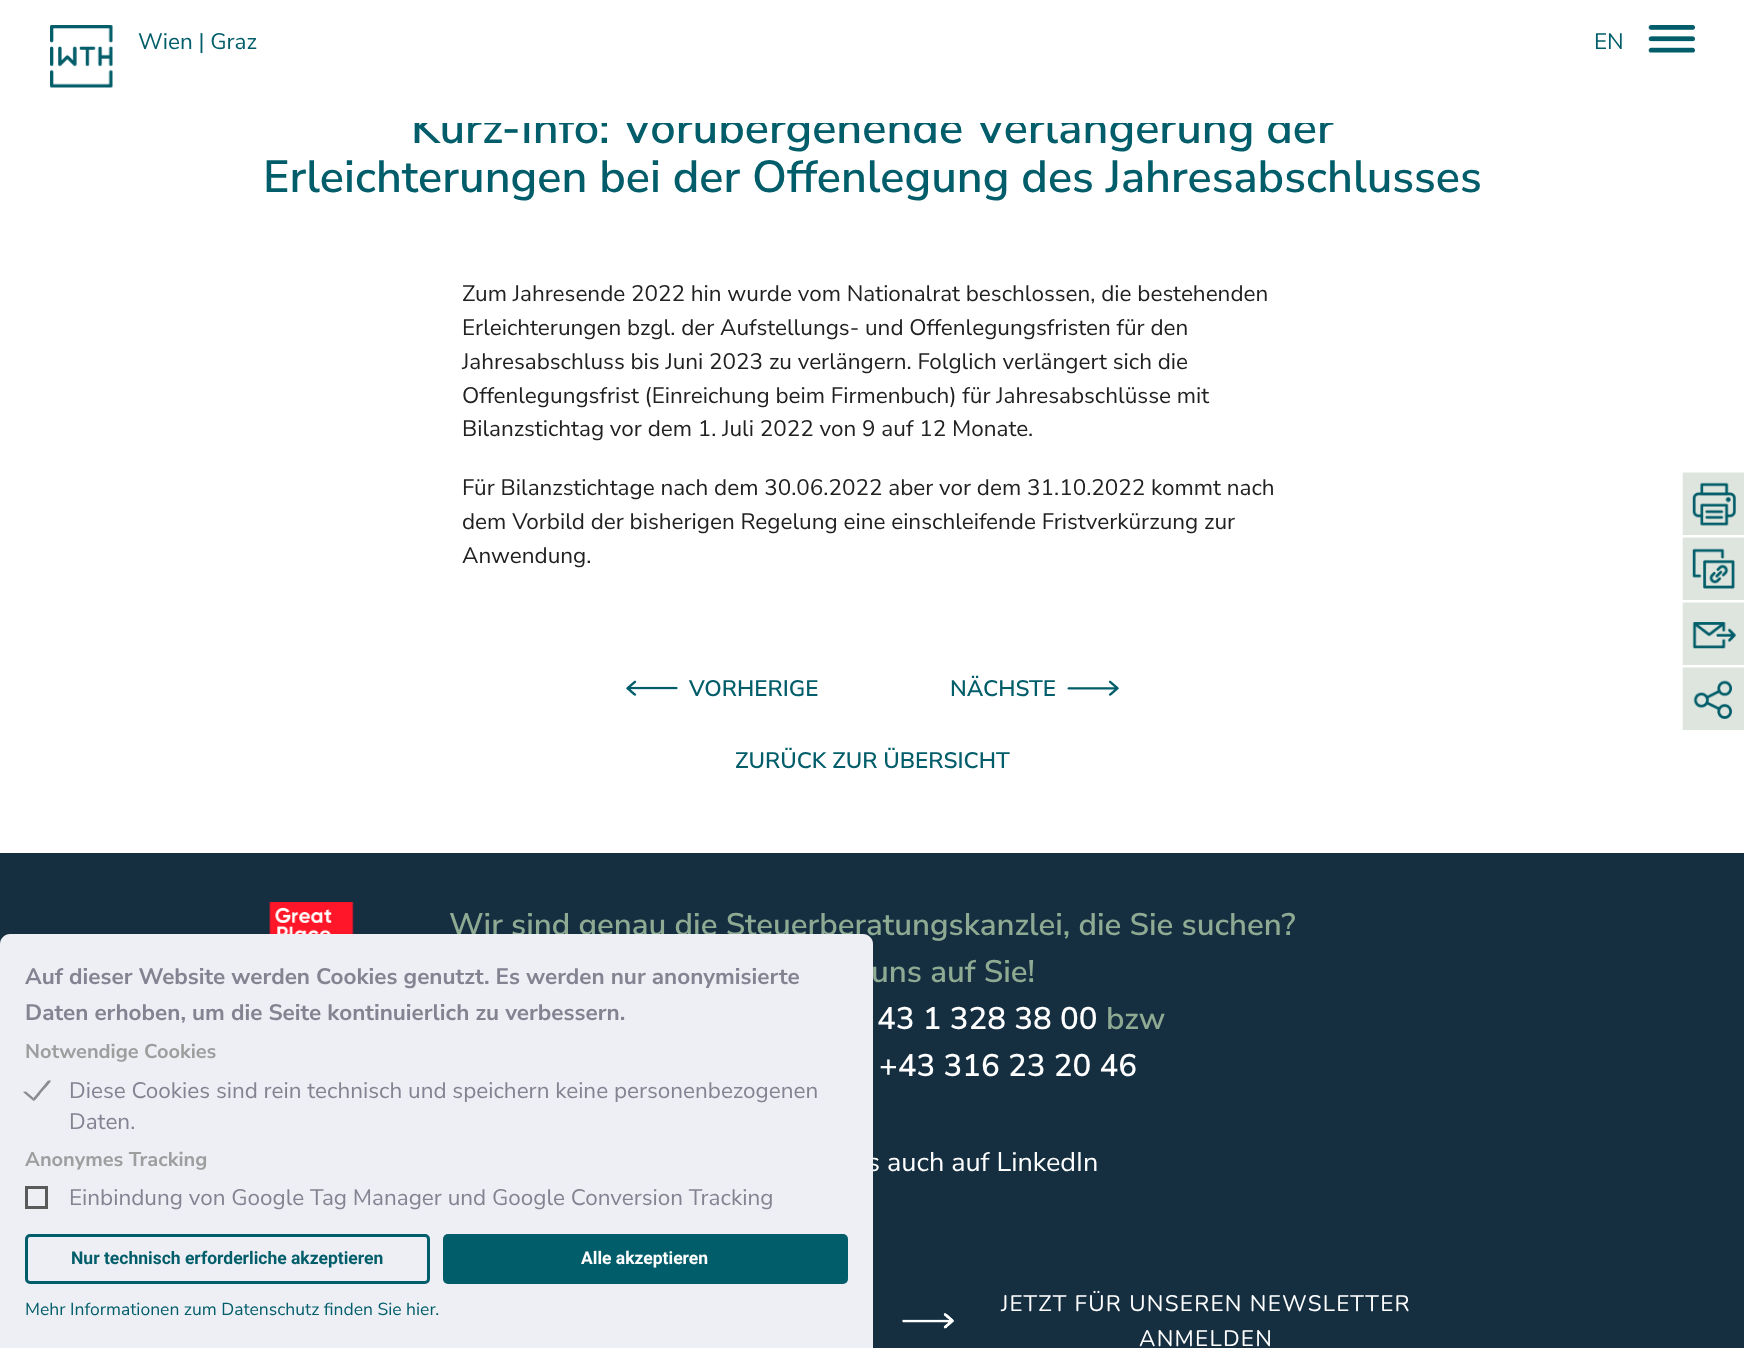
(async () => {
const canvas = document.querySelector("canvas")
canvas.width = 1744
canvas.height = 1348
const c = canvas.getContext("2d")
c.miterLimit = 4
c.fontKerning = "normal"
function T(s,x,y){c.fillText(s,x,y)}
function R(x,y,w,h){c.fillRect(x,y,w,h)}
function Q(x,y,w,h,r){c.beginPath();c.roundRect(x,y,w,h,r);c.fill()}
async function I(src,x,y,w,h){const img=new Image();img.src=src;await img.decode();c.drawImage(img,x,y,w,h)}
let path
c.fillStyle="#fff"
R(0,0,1744,1348)
c.font="600 45px Nunito Sans"
c.fillStyle="#015d69"
T("Kurz-Info: Vorübergehende Verlängerung der",411,143)
c.fillStyle="#fff"
R(414,111,920,12)
await I("1.png",50,25,63,63)
c.font="22.5px Nunito Sans"
c.fillStyle="#015d69"
T("Wien | Graz",138,49)
T("EN",1594,49)
await I("2.png",1648,25,47,28)
c.font="600 45px Nunito Sans"
T("Erleichterungen bei der Offenlegung des Jahresabschlusses",263,192)
c.font="22.5px Nunito Sans"
c.fillStyle="#212121"
T("Zum Jahresende 2022 hin wurde vom Nationalrat beschlossen, die bestehenden",462,301)
T("Erleichterungen bzgl. der Aufstellungs- und Offenlegungsfristen für den",462,335)
T("Jahresabschluss bis Juni 2023 zu verlängern. Folglich verlängert sich die",462,369)
T("Offenlegungsfrist (Einreichung beim Firmenbuch) für Jahresabschlüsse mit",462,403)
T("Bilanzstichtag vor dem 1. Juli 2022 von 9 auf 12 Monate.",462,436)
T("Für Bilanzstichtage nach dem 30.06.2022 aber vor dem 31.10.2022 kommt nach",462,495)
T("dem Vorbild der bisherigen Regelung eine einschleifende Fristverkürzung zur",462,529)
T("Anwendung.",462,563)
await I("3.png",626,680,52,16)
c.font="600 22.5px Nunito Sans"
c.fillStyle="#015d69"
T("VORHERIGE",689,696)
T("NÄCHSTE",950,696)
await I("4.png",1067,680,52,16)
T("ZURÜCK ZUR ÜBERSICHT",735,768)
await I("5.png",1682,472,62,63)
await I("6.png",1682,537,62,63)
await I("7.png",1682,602,62,63)
await I("8.png",1682,667,62,63)
c.fillStyle="#152f41"
R(0,853,1744,495)
await I("9.png",269,902,85,32)
c.font="600 31.25px Nunito Sans"
c.fillStyle="#8eaa92"
T("Wir sind genau die Steuerberatungskanzlei, die Sie suchen?",449,935)
T("uns auf Sie!",871,982)
c.fillStyle="#fff"
T("43 1 328 38 00",877,1029)
c.fillStyle="#8eaa92"
T("bzw",1106,1029)
c.fillStyle="#fff"
T("+43 316 23 20 46",879,1076)
c.font="27px Nunito Sans"
T("s auch auf LinkedIn",867,1171)
await I("10.png",902,1313,52,16)
c.letterSpacing="1.25px"
c.font="22.5px Nunito"
T("JETZT FÜR UNSEREN NEWSLETTER",1001,1311)
T("ANMELDEN",1139,1346)
c.fillStyle="#edeff5"
path = new Path2D("M10 934h853c5.5 0 10 4.5 10 10v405h-873v-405c0-5.5 4.5-10 10-10z")
c.fill(path)
c.letterSpacing="0px"
c.font="bold 22.5px Nunito Sans"
c.fillStyle="#838391"
T("Auf dieser Website werden Cookies genutzt. Es werden nur anonymisierte",25,984)
T("Daten erhoben, um die Seite kontinuierlich zu verbessern.",25,1020)
c.font="bold 20px Nunito Sans"
c.fillStyle="#9e9e9e"
T("Notwendige Cookies",25,1058)
c.fillStyle="#898b8e"
path = new Path2D("M42 1091.5c-1 1.5-7 9.5-8.5 9.5v-3l14.5-17.5h3c0 1.5-7.5 9.5-9 11z")
c.fill(path)
c.fillStyle="#0000006b"
path = new Path2D("M23 1092h-.5l3.5-.5l7.5 6.5v3z")
c.fill(path)
c.font="22.5px Nunito Sans"
c.fillStyle="#838391"
T("Diese Cookies sind rein technisch und speichern keine personenbezogenen",69,1098)
T("Daten.",69,1129)
c.font="bold 20px Nunito Sans"
c.fillStyle="#9e9e9e"
T("Anonymes Tracking",25,1166)
c.beginPath()
c.rect(26.5,1187.5,20,20)
c.strokeStyle="#5a5a5a"
c.lineWidth=3
c.stroke()
c.font="22.5px Nunito Sans"
c.fillStyle="#838391"
T("Einbindung von Google Tag Manager und Google Conversion Tracking",69,1205)
c.beginPath()
c.roundRect(26.5,1235.5,402,47,3.5)
c.strokeStyle="#015d69"
c.stroke()
c.font="bold 17.5px Roboto"
c.fillStyle="#015d69"
T("Nur technisch erforderliche akzeptieren",71,1264)
Q(443,1234,405,50,5)
c.fillStyle="#fff"
T("Alle akzeptieren",581,1264)
c.font="17.5px Nunito Sans"
c.fillStyle="#015d69"
T("Mehr Informationen zum Datenschutz finden Sie hier.",25,1315)
})()
